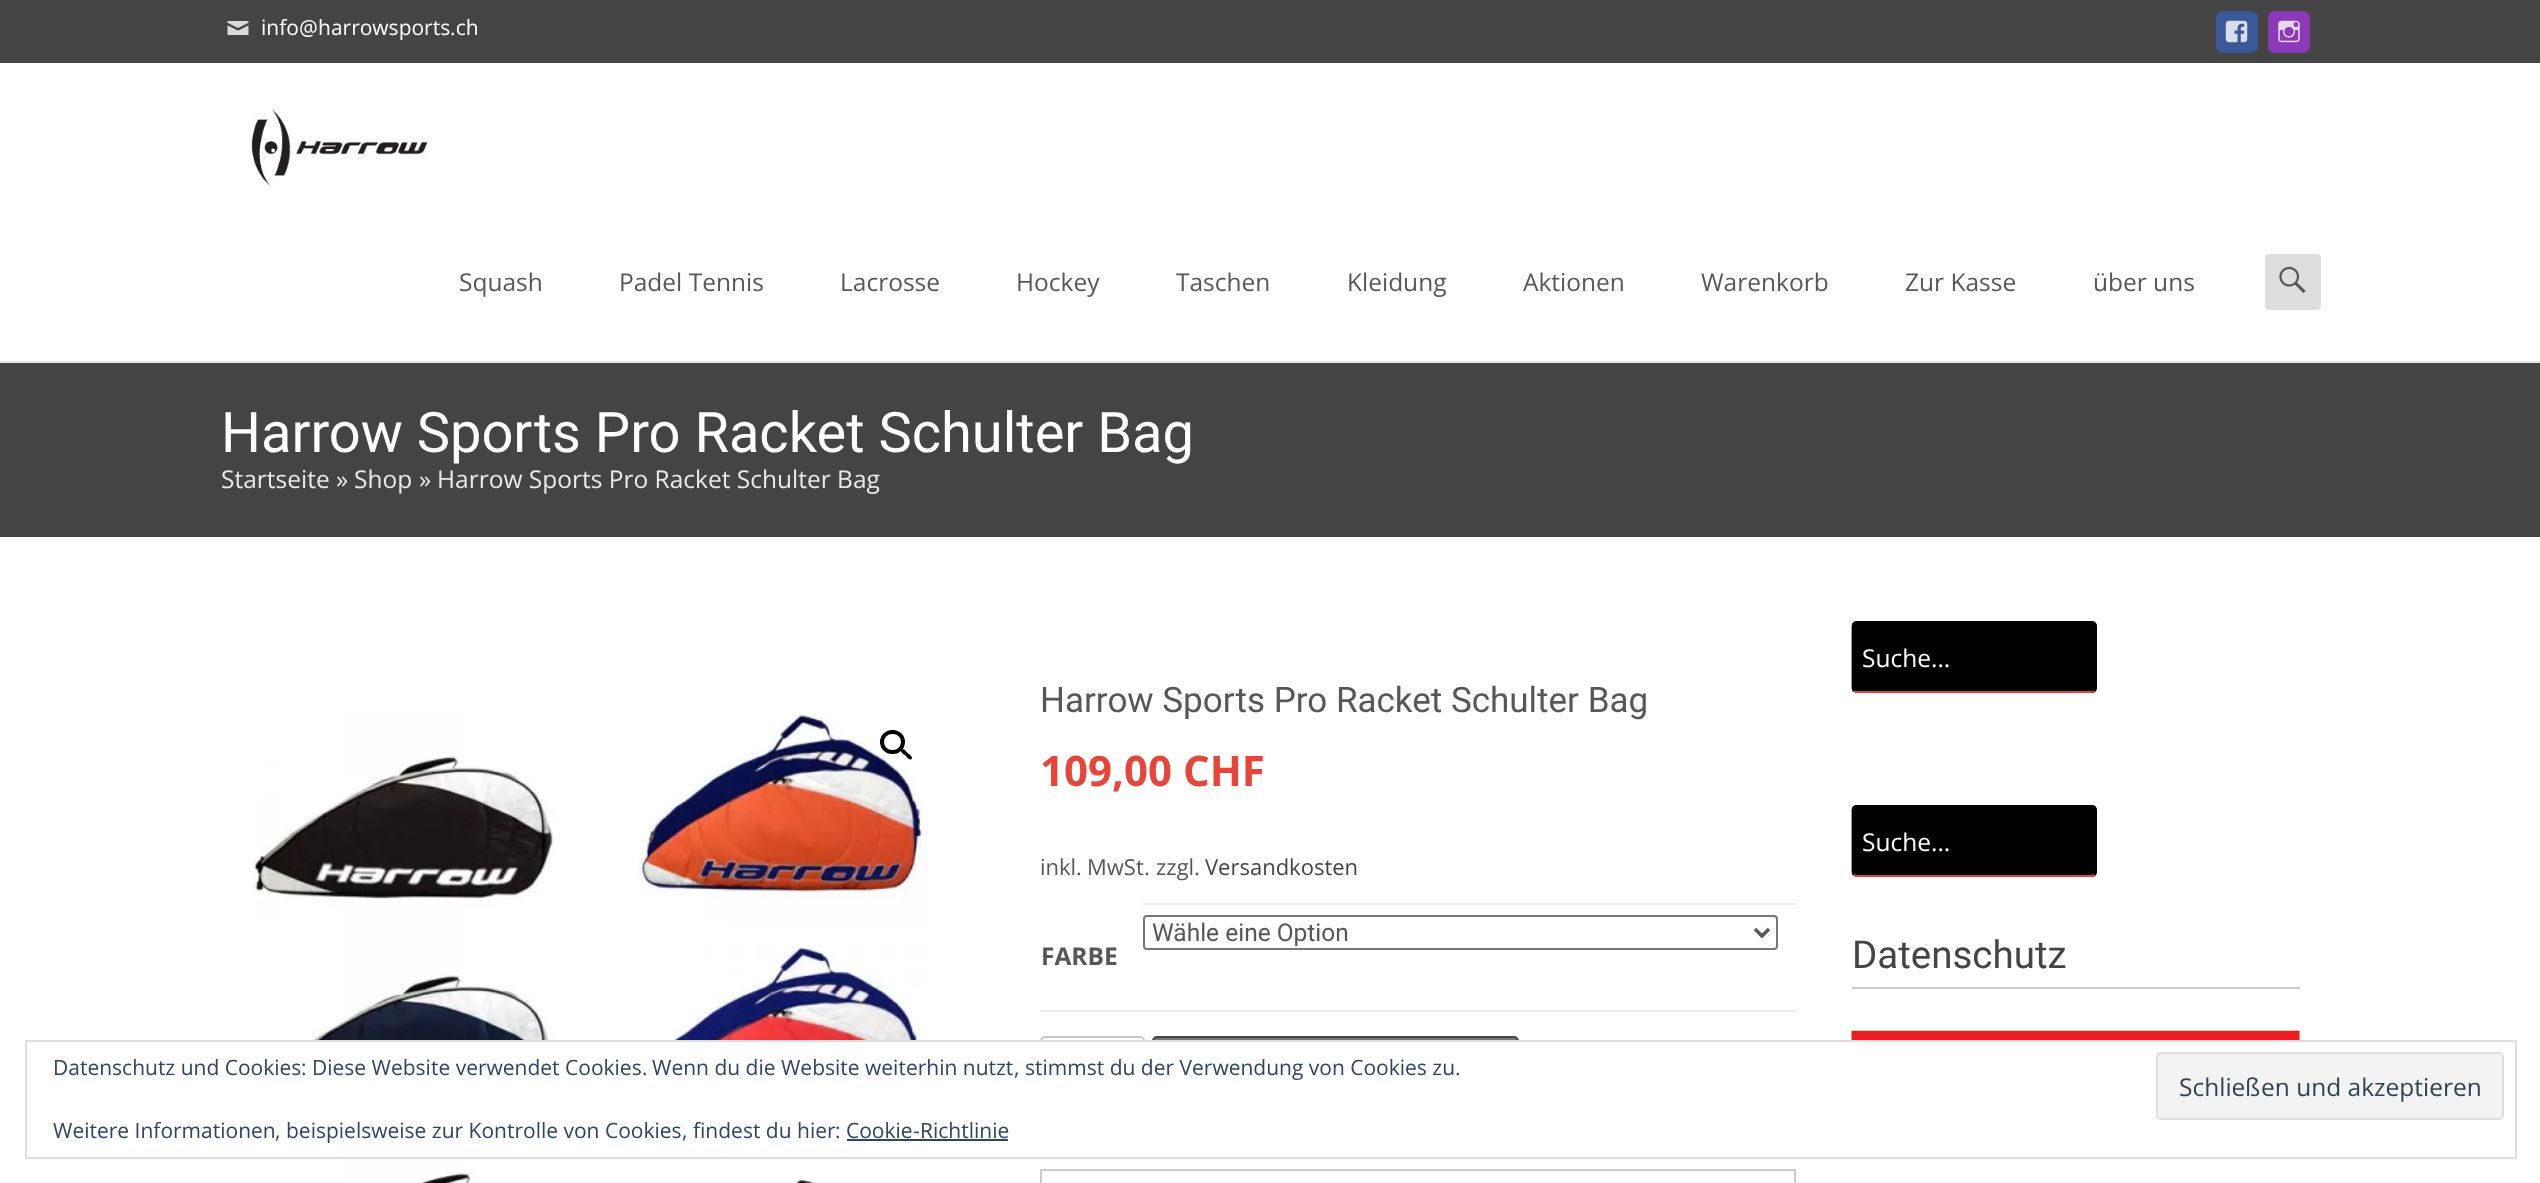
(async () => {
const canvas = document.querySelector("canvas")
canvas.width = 2540
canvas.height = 1183
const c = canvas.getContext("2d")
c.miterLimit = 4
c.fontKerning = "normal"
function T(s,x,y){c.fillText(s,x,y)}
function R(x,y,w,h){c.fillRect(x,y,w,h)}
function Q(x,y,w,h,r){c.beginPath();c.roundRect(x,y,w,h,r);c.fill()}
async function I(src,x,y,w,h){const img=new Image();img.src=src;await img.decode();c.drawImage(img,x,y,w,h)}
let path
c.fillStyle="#fff"
R(0,0,2540,1183)
c.fillStyle="#444"
R(0,0,2540,63)
await I("1.png",227,21,22,14)
c.font="21px Open Sans"
c.fillStyle="#fff"
T("info",261,35)
c.font="21px 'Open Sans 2'"
T("@",299,35)
c.font="21px Open Sans"
T("harrowsports ch",318,35)
c.font="21px 'Open Sans 2'"
T(".",450,35)
c.fillStyle="#3b5998"
Q(2216,11,42,42,7)
await I("2.png",2225,20,23,23)
c.fillStyle="#8a3ab9"
Q(2268,11,42,42,7)
await I("3.png",2278,20,22,23)
c.fillStyle="#e7e7e7"
R(0,361,2540,2)
await I("4.png",251,109,177,77)
c.font="24.5px Open Sans"
c.fillStyle="#575757"
T("Squash",459,291)
T("Padel Tennis",619,291)
T("Lacrosse",840,291)
T("Hockey",1016,291)
T("Taschen",1176,291)
T("Kleidung",1347,291)
T("Aktionen",1523,291)
T("Warenkorb",1701,291)
T("Zur Kasse",1905,291)
c.font="24.5px 'Open Sans 2'"
T("ü",2093,291)
c.font="24.5px Open Sans"
T("ber uns",2108,291)
c.fillStyle="#ddd"
Q(2265,254,56,56,4)
await I("5.png",2279,266,27,27)
c.fillStyle="#444"
R(0,363,2540,174)
c.font="56px Roboto"
c.fillStyle="#fff"
T("Harrow Sports Pro Racket Schulter Bag",221,452)
c.font="24.5px Open Sans"
c.fillStyle="#e9e9e9"
T("Startseite",221,488)
c.font="24.5px 'Open Sans 2'"
T("»",336,488)
c.font="24.5px Open Sans"
T("Shop",354,488)
c.font="24.5px 'Open Sans 2'"
T("»",419,488)
c.font="24.5px Open Sans"
T("Harrow Sports Pro Racket Schulter Bag",437,488)
await I("6.png",251,713,679,470)
c.beginPath()
c.roundRect(882,732,21,20,10)
c.strokeStyle="#000"
c.lineWidth=4
c.stroke()
c.fillStyle="#000"
path = new Path2D("M901.5 749.5c2-2 5 2.5 6 3.5c1.5 1 6 4 4 6c-2 2-5-2.5-6-3.5c-1.5-1-6-4-4-6z")
c.fill(path)
c.font="35px Roboto"
c.fillStyle="#575757"
T("Harrow Sports Pro Racket Schulter Bag",1040,712)
c.font="bold 42px Open Sans"
c.fillStyle="#e7453a"
T("109,00 CHF",1040,786)
c.font="22px Open Sans"
c.fillStyle="#575757"
T("inkl",1040,875)
c.font="22px 'Open Sans 2'"
T(".",1076,875)
c.font="22px Open Sans"
T("MwSt",1087,875)
c.font="22px 'Open Sans 2'"
T(".",1144,875)
c.font="22px Open Sans"
T("zzgl",1156,875)
c.font="22px 'Open Sans 2'"
T(".",1194,875)
c.font="22px Open Sans"
c.fillStyle="#444"
T("Versandkosten",1205,875)
c.fillStyle="#ededed"
R(1040,1010,756,2)
R(1143,903,654,2)
c.beginPath()
c.roundRect(1144,916,633,33,3)
c.strokeStyle="#767676"
c.lineWidth=2
c.stroke()
path = new Path2D("M1755 929l7 7l7-7")
c.strokeStyle="#575757"
c.lineWidth=3.5
c.stroke(path)
c.font="24.5px Roboto"
c.fillStyle="#575757"
T("Wähle eine Option",1152,941)
c.font="bold 24.5px Open Sans"
T("FARBE",1041,965)
c.beginPath()
c.roundRect(1041,1037,103,82,4)
c.strokeStyle="#c7c7c7"
c.lineWidth=2
c.stroke()
c.fillStyle="#767676"
c.beginPath()
c.roundRect(1153,1037,365,82,4)
c.fill()
c.strokeStyle="#444"
c.stroke()
c.strokeStyle="#ccc"
c.strokeRect(1041,1170,754,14)
c.fillStyle="#000"
Q(1852,621,245,72,5)
path = new Path2D("M2094.5 691c-1 .5-2 1-3.5 1h-234c-1.5 0-2.5-.5-3.5-1")
c.strokeStyle="#e7453a"
c.lineWidth=1.8
c.stroke(path)
path = new Path2D("M1853.5 691c-.5-1-1-2-1-3v-61.5c0-1 .5-2.5 1-3c1-1 2-1.5 3.5-1.5h234c1.5 0 2.5 .5 3.5 1.5c.5 .5 1 2 1 3v61.5c0 1-.5 2-1 3")
c.strokeStyle="#000"
c.stroke(path)
c.font="24.5px Open Sans"
c.fillStyle="#fff"
T("Suche",1862,667)
c.font="24.5px 'Open Sans 2'"
T("...",1931,667)
c.fillStyle="#000"
Q(1852,805,245,72,5)
path = new Path2D("M2094.5 874.5c-1 1-2 1.5-3.5 1.5h-234c-1.5 0-2.5-.5-3.5-1.5")
c.strokeStyle="#e7453a"
c.stroke(path)
path = new Path2D("M1853.5 874.5c-.5-.5-1-2-1-3v-61.5c0-1 .5-2 1-3c1-.5 2-1 3.5-1h234c1.5 0 2.5 .5 3.5 1c.5 1 1 2 1 3v61.5c0 1-.5 2.5-1 3")
c.strokeStyle="#000"
c.stroke(path)
c.font="24.5px Open Sans"
c.fillStyle="#fff"
T("Suche",1862,851)
c.font="24.5px 'Open Sans 2'"
T("...",1931,851)
c.fillStyle="#ccc"
R(1852,987,448,2)
c.font="38.5px Roboto"
c.fillStyle="#444"
T("Datenschutz",1852,968)
await I("7.png",1851,1030,449,10)
c.fillStyle="#fff"
R(260,1042,1259,100)
c.strokeStyle="#dedede"
c.lineWidth=2
c.strokeRect(26,1041,2490,117)
c.font="21px Open Sans"
c.fillStyle="#2e4467"
T("Datenschutz und Cookies",53,1075)
c.font="21px 'Open Sans 2'"
T(":",301,1075)
c.font="21px Open Sans"
T("Diese Website verwendet Cookies",312,1075)
c.font="21px 'Open Sans 2'"
T(".",642,1075)
c.font="21px Open Sans"
T("Wenn du die Website weiterhin nutzt",652,1075)
c.font="21px 'Open Sans 2'"
T(",",1014,1075)
c.font="21px Open Sans"
T("stimmst du der Verwendung von Cookies zu",1025,1075)
c.font="21px 'Open Sans 2'"
T(".",1455,1075)
c.fillStyle="#f3f3f3"
c.beginPath()
c.roundRect(2157,1053,346,66,4)
c.fill()
c.stroke()
c.font="24.5px Open Sans"
c.fillStyle="#2e4453"
T("Schlie",2179,1096)
c.font="24.5px 'Open Sans 2'"
T("ß",2245,1096)
c.font="24.5px Open Sans"
T("en und akzeptieren",2261,1096)
c.font="21px Open Sans"
c.fillStyle="#2e4467"
T("Weitere Informationen",53,1138)
T("beispielsweise zur Kontrolle von Cookies",286,1138)
T("findest du hier",693,1138)
c.font="21px 'Open Sans 2'"
T(":",835,1138)
c.font="21px Open Sans"
T("Cookie",846,1138)
c.font="21px 'Open Sans 2'"
T("-",913,1138)
R(847,1139,161,2)
c.font="21px Open Sans"
T("Richtlinie",920,1138)
c.font="21px 'Open Sans 2'"
T(",",275,1138)
T(",",682,1138)
})()
